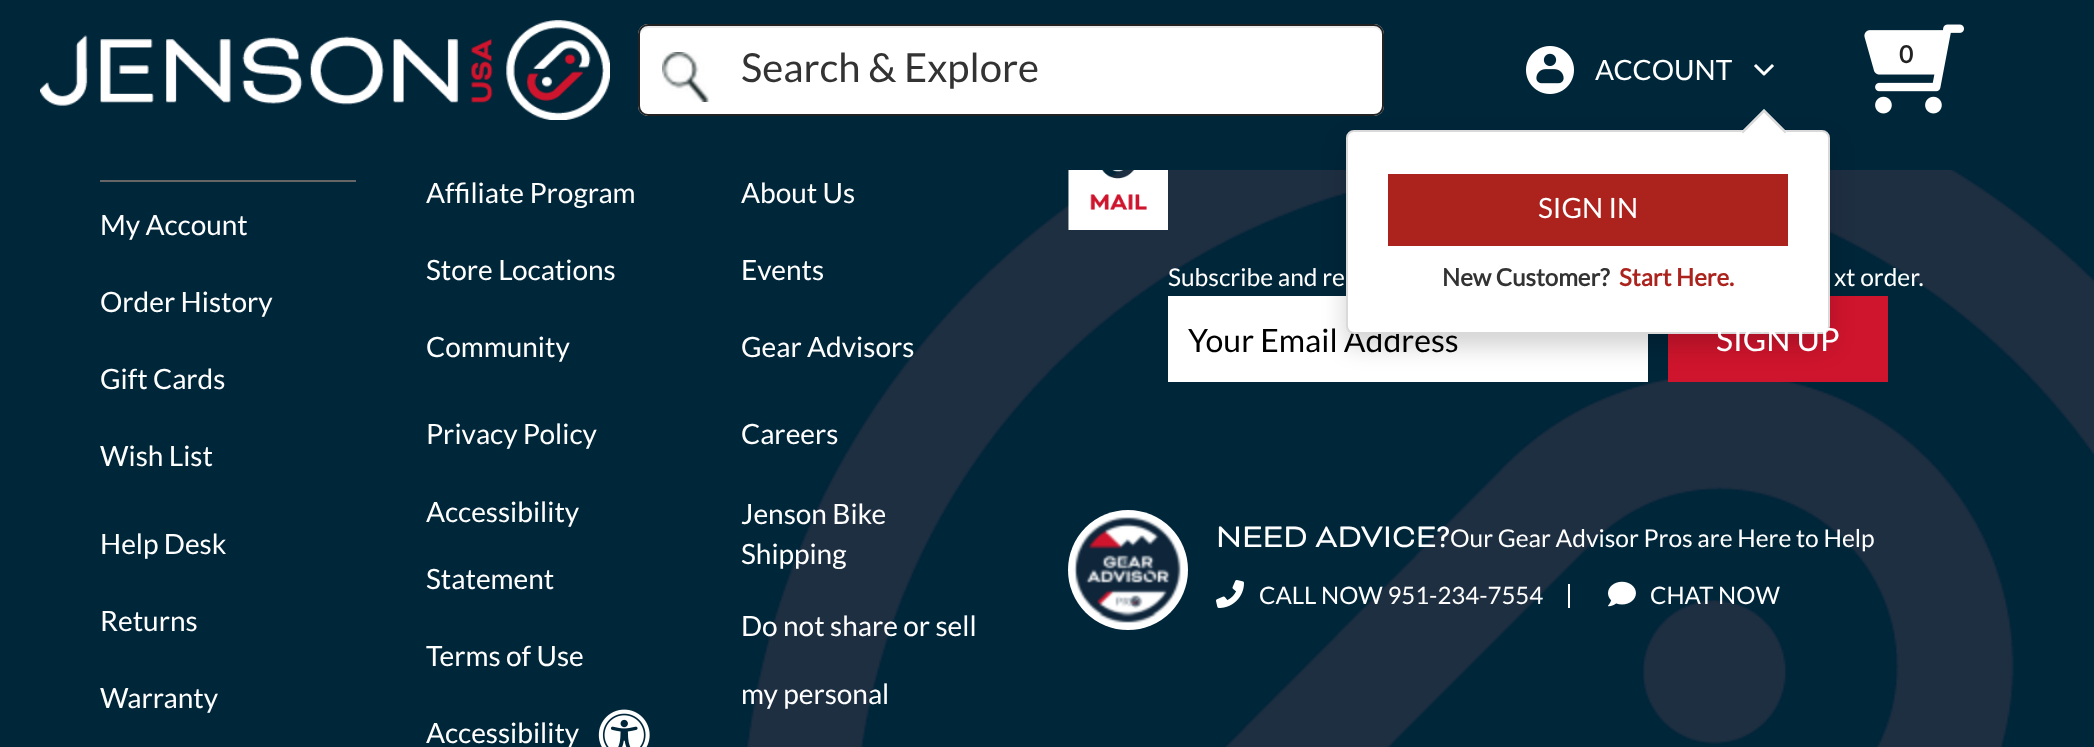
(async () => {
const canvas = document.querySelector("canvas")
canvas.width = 2094
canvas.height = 747
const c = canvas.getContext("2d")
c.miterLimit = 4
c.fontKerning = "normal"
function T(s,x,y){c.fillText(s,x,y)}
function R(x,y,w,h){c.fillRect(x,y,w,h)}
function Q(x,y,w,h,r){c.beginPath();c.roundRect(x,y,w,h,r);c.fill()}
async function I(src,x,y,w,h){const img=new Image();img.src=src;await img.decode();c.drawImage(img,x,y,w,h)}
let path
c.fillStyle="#00263a"
R(0,0,2094,747)
await I("1.png",40,20,570,100)
c.fillStyle="#fff"
Q(638,24,746,92,10)
c.fillStyle="#ececec"
path = new Path2D("M648 28h726c4 0 8 4 8 8c0-5-2-10-8-10h-726c-6 0-8 5-8 10c0-4 4-8 8-8z")
c.fill(path)
c.beginPath()
c.roundRect(639,25,744,90,9)
c.strokeStyle="#222"
c.lineWidth=2
c.stroke()
await I("2.png",662,52,48,50)
c.font="40px Lato"
c.fillStyle="#333"
T("Search & Explore",741,82)
await I("3.png",1526,46,48,48)
c.font="28px Lato"
c.fillStyle="#fff"
T("ACCOUNT",1595,80)
path = new Path2D("M1756 66l8 8l8-8")
c.strokeStyle="#fff"
c.lineWidth=3
c.lineCap="square"
c.lineJoin="round"
c.stroke(path)
await I("4.png",1864,24,100,90)
await I("5.png",747,170,1347,577)
R(1168,296,480,86)
c.fillStyle="#cf152d"
R(1668,296,220,86)
c.fillStyle="#0000002e"
c.filter="blur(12px)"
c.beginPath()
c.roundRect(1346,142,484,204,8)
c.fill()
c.filter="none"
c.font="32px Lato"
c.fillStyle="#000"
T("Your Email Address",1188,352)
c.fillStyle="#fff"
c.beginPath()
c.roundRect(1347,131,482,202,7)
c.fill()
c.strokeStyle="#d9d9d9"
c.lineWidth=2
c.lineJoin="miter"
c.stroke()
path = new Path2D("M1787 132l-23 23l-23-23l23-23z")
c.fill(path)
c.fillStyle="#d9d9d9"
path = new Path2D("M1765.5 111l-22.5 22.5l-1.5-1.5l22.5-22.5z")
c.fill(path)
path = new Path2D("M1786.5 132l-1.5 1.5l-22.5-22.5l1.5-1.5z")
c.fill(path)
c.fillStyle="#ab231c"
R(1388,174,400,72)
c.font="28px Lato"
c.fillStyle="#fff"
T("SIGN IN",1538,218)
c.font="bold 24px Lato"
c.fillStyle="#333"
T("New Customer?",1442,286)
c.fillStyle="#ab231c"
T("Start Here.",1619,286)
c.fillStyle="#222"
T("0",1899,63)
c.fillStyle="#666"
R(100,180,256,2)
c.font="28px Lato"
c.fillStyle="#fff"
T("My Account",100,235)
T("Order History",100,312)
T("Gift Cards",100,389)
T("Wish List",100,466)
T("Help Desk",100,554)
T("Returns",100,631)
T("Warranty",100,708)
T("Affiliate Program",426,203)
T("Store Locations",426,280)
T("Community",426,357)
T("Privacy Policy",426,444)
T("Accessibility",426,522)
T("Statement",426,589)
T("Terms of Use",426,666)
T("Accessibility",426,743)
await I("6.png",598,709,52,38)
T("About Us",741,203)
T("Events",741,280)
T("Gear Advisors",741,357)
T("Careers",741,444)
T("Jenson Bike",741,524)
T("Shipping",741,564)
T("Do not share or sell",741,636)
T("my personal",741,704)
await I("7.png",1068,170,100,60)
c.font="24.5px Lato"
T("Subscribe and re",1168,286)
T("xt order.",1834,286)
c.font="32px Lato"
T("SIGN UP",1716,351)
await I("8.png",1068,510,120,120)
c.font="34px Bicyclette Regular"
T("NEED ADVICE?",1216,547)
c.font="24.5px Lato"
T("Our Gear Advisor Pros are Here to Help",1450,547)
await I("9.png",1216,580,28,28)
c.font="24px Lato"
T("CALL NOW 951-234-7554",1259,604)
R(1568,584,2,24)
await I("10.png",1608,581,28,26)
T("CHAT NOW",1650,604)
})()
